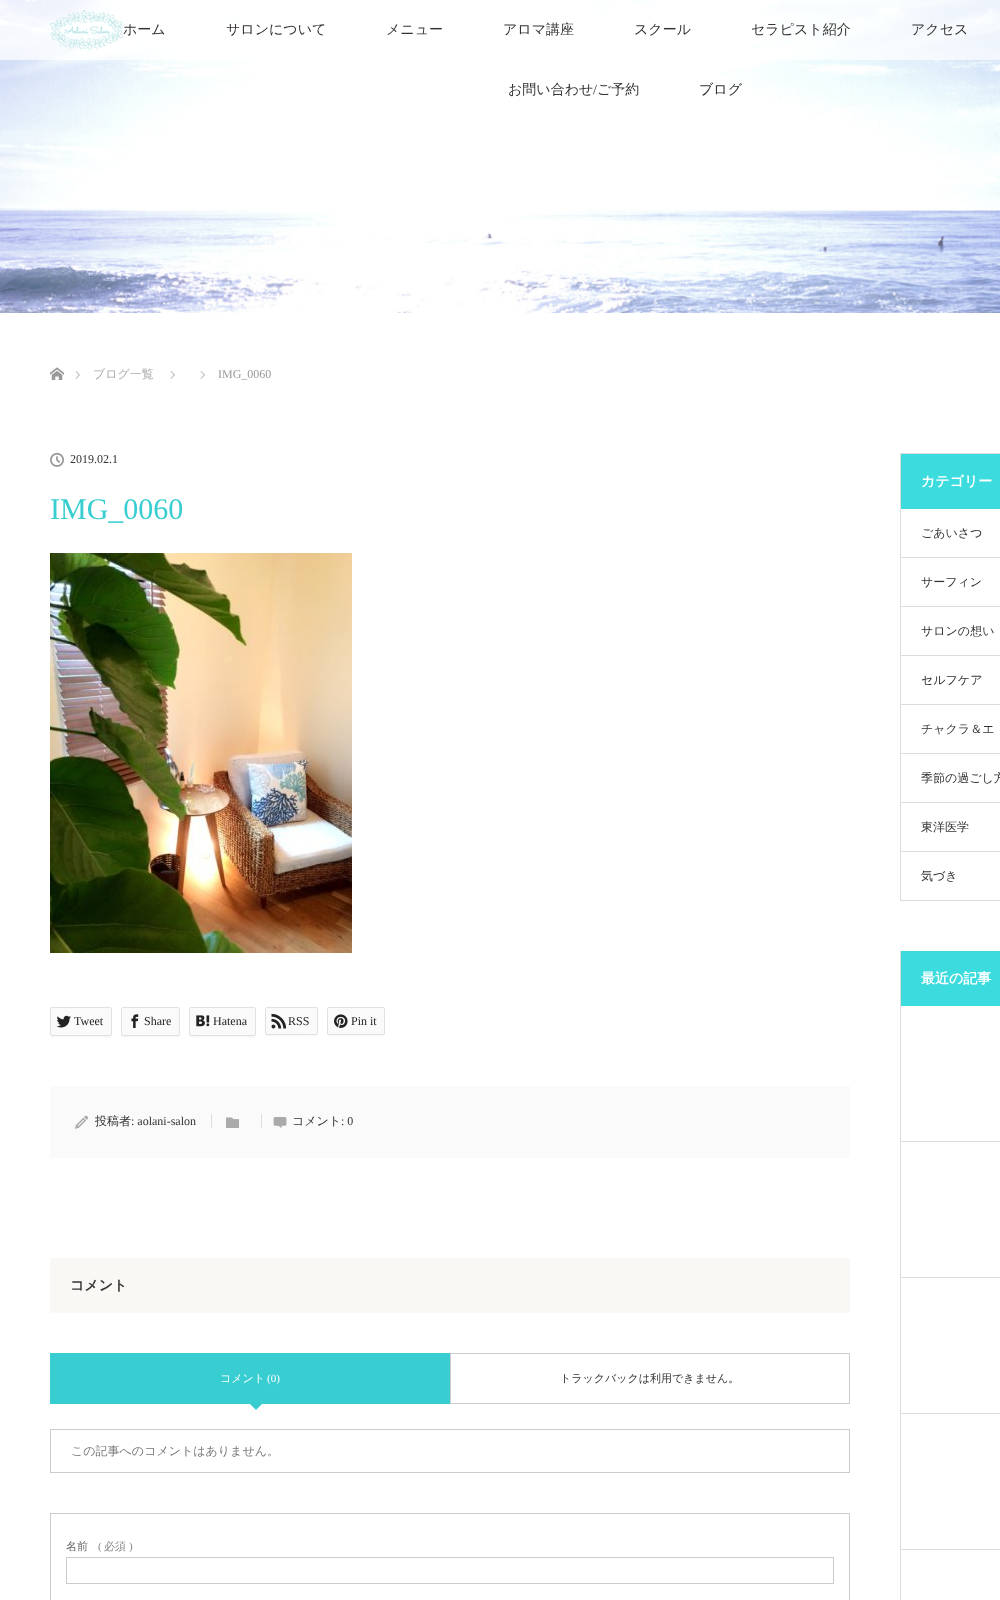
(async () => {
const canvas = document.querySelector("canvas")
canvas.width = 1000
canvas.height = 1600
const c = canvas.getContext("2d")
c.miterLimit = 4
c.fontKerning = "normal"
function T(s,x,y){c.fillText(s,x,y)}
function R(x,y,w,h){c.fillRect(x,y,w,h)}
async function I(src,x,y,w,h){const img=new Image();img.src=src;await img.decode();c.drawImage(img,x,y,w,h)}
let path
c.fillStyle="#fff"
R(0,0,1000,1600)
await I("2.png",0,0,1000,313)
c.fillStyle="#ffffffb3"
R(0,0,1000,60)
await I("1.png",50,10,73,40)
c.font="500 14px WenQuanYi Zen Hei"
c.fillStyle="#333"
T("ホーム",123,34)
T("サロンについて",226,34)
T("メニュー",386,34)
T("アロマ講座",503,34)
T("スクール",634,34)
T("セラピスト紹介",751,34)
T("アクセス",911,34)
T("お問い合わせ",508,94)
c.font="14px Liberation Serif"
T("/",593,94)
c.font="500 14px WenQuanYi Zen Hei"
T("ご予約",597,94)
T("ブログ",699,94)
await I("3.png",50,367,14,13)
await I("4.png",75,371,5,8)
c.font="500 12px WenQuanYi Zen Hei"
c.fillStyle="#aaa"
T("ブログ一覧",93,378)
await I("4.png",170,371,5,8)
await I("4.png",200,371,5,8)
c.font="12px Liberation Serif"
c.fillStyle="#999"
T("IMG_0060",218,378)
await I("5.png",50,452,14,15)
c.fillStyle="#333"
T("2019.02.1",70,463)
c.font="30px Liberation Serif"
c.fillStyle="#38ced1"
T("IMG_0060",50,519)
await I("6.png",50,553,302,400)
c.fillStyle="#f7f7f7"
path = new Path2D("M50 1034c0 6 8 3 12 3h38c4 0 12 3 12-3l-1 2h-49c-4 0-12 2-12-2z")
c.fill(path)
c.fillStyle="#fafafa"
c.beginPath()
c.roundRect(50.5,1007.5,61,28,1.5)
c.fill()
c.strokeStyle="#e1e1e1"
c.stroke()
await I("7.png",56,1015,15,13)
c.font="12px Liberation Serif"
c.fillStyle="#222"
T("Tweet",74,1025)
c.fillStyle="#f7f7f7"
path = new Path2D("M121 1034c0 5 7 3 11 3h37c4 0 11 2 11-3l-1 2h-57z")
c.fill(path)
c.fillStyle="#fafafa"
c.beginPath()
c.roundRect(121.5,1007.5,58,28,1.5)
c.fill()
c.stroke()
await I("8.png",131,1014,8,14)
c.fillStyle="#222"
T("Share",144,1025)
c.fillStyle="#f7f7f7"
path = new Path2D("M189 1034c0 6 9 3 13 3h42c3 0 12 3 12-3l-1 2h-64l-2-1z")
c.fill(path)
c.fillStyle="#fafafa"
c.beginPath()
c.roundRect(189.5,1007.5,66,28,1.5)
c.fill()
c.stroke()
await I("9.png",196,1015,14,12)
c.fillStyle="#222"
T("Hatena",213,1025)
c.fillStyle="#f7f7f7"
path = new Path2D("M265 1033c0 5 6 3 10 3h33c4 0 10 2 10-3c0 1-1 2-2 2h-49c-1 0-2-1-2-2z")
c.fill(path)
c.fillStyle="#fafafa"
c.beginPath()
c.roundRect(265.5,1007.5,52,27,1.5)
c.fill()
c.stroke()
await I("10.png",271,1013,16,16)
c.fillStyle="#222"
T("RSS",288,1025)
c.fillStyle="#f7f7f7"
path = new Path2D("M327 1033c0 5 7 3 11 3h36c4 0 11 2 11-3l-1 2h-56z")
c.fill(path)
c.fillStyle="#fafafa"
c.beginPath()
c.roundRect(327.5,1007.5,57,27,1.5)
c.fill()
c.stroke()
await I("11.png",334,1014,14,14)
c.fillStyle="#222"
T("Pin it",351,1025)
c.fillStyle="#fafafa"
R(50,1086,800,72)
c.fillStyle="#ddd"
R(211,1114,1,14)
await I("12.png",75,1115,13,14)
c.font="500 12px WenQuanYi Zen Hei"
c.fillStyle="#333"
T("投稿者",95,1125)
c.font="12px Liberation Serif"
T(": aolani-salon",131,1125)
c.fillStyle="#ddd"
R(261,1114,1,14)
await I("13.png",226,1117,13,11)
await I("14.png",273,1117,14,11)
c.font="500 12px WenQuanYi Zen Hei"
c.fillStyle="#333"
T("コメント",292,1125)
c.font="12px Liberation Serif"
T(": 0",341,1125)
c.fillStyle="#f9f8f4"
R(50,1258,800,55)
c.font="bold 14px WenQuanYi Zen Hei"
c.fillStyle="#333"
T("コメント",70,1290)
c.fillStyle="#38ced1"
R(50,1353,400,51)
c.font="500 11px WenQuanYi Zen Hei"
c.fillStyle="#fff"
T("コメント",220,1382)
c.font="11px Liberation Serif"
T("(0)",267,1382)
c.fillStyle="#38ced1"
path = new Path2D("M246 1400h20l-10 10z")
c.fill(path)
c.strokeStyle="#ccc"
c.strokeRect(450.5,1353.5,399,50)
c.font="500 11px WenQuanYi Zen Hei"
c.fillStyle="#333"
T("トラックバックは利用できません。",560,1382)
c.strokeRect(50.5,1429.5,799,43)
c.font="500 12px WenQuanYi Zen Hei"
c.fillStyle="#777"
T("この記事へのコメントはありません。",71,1455)
c.strokeRect(50.5,1513.5,799,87)
c.font="500 11px WenQuanYi Zen Hei"
c.fillStyle="#666"
T("名前",66,1550)
c.font="11px Liberation Serif"
c.fillStyle="#888"
T("(",98,1550)
c.font="500 11px WenQuanYi Zen Hei"
T("必須",104,1550)
c.font="11px Liberation Serif"
T(")",129,1550)
c.strokeRect(66.5,1557.5,767,26)
c.fillStyle="#ddd"
R(900,453,100,1)
R(900,453,1,448)
c.fillStyle="#3bdbde"
R(901,454,99,55)
c.font="bold 14px WenQuanYi Zen Hei"
c.fillStyle="#fff"
T("カテゴリー",921,486)
c.fillStyle="#ddd"
R(901,557,99,1)
c.font="500 12px WenQuanYi Zen Hei"
c.fillStyle="#333"
T("ごあいさつ",921,537)
c.fillStyle="#ddd"
R(901,606,99,1)
c.fillStyle="#333"
T("サーフィン",921,586)
c.fillStyle="#ddd"
R(901,655,99,1)
c.fillStyle="#333"
T("サロンの想い",921,635)
c.fillStyle="#ddd"
R(901,704,99,1)
c.fillStyle="#333"
T("セルフケア",921,684)
c.fillStyle="#ddd"
R(901,753,99,1)
c.fillStyle="#333"
T("チャクラ＆エ",921,733)
c.fillStyle="#ddd"
R(901,802,99,1)
c.fillStyle="#333"
T("季節の過ごし方",921,782)
c.fillStyle="#ddd"
R(901,851,99,1)
c.fillStyle="#333"
T("東洋医学",921,831)
c.fillStyle="#ddd"
R(901,900,99,1)
c.fillStyle="#333"
T("気づき",921,880)
c.strokeStyle="#ddd"
c.strokeRect(900.5,951.5,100,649)
c.fillStyle="#3bdbde"
R(901,951,99,55)
c.font="bold 14px WenQuanYi Zen Hei"
c.fillStyle="#fff"
T("最近の記事",921,983)
c.fillStyle="#ddd"
R(901,1141,99,1)
R(901,1277,99,1)
R(901,1413,99,1)
R(901,1549,99,1)
})()
